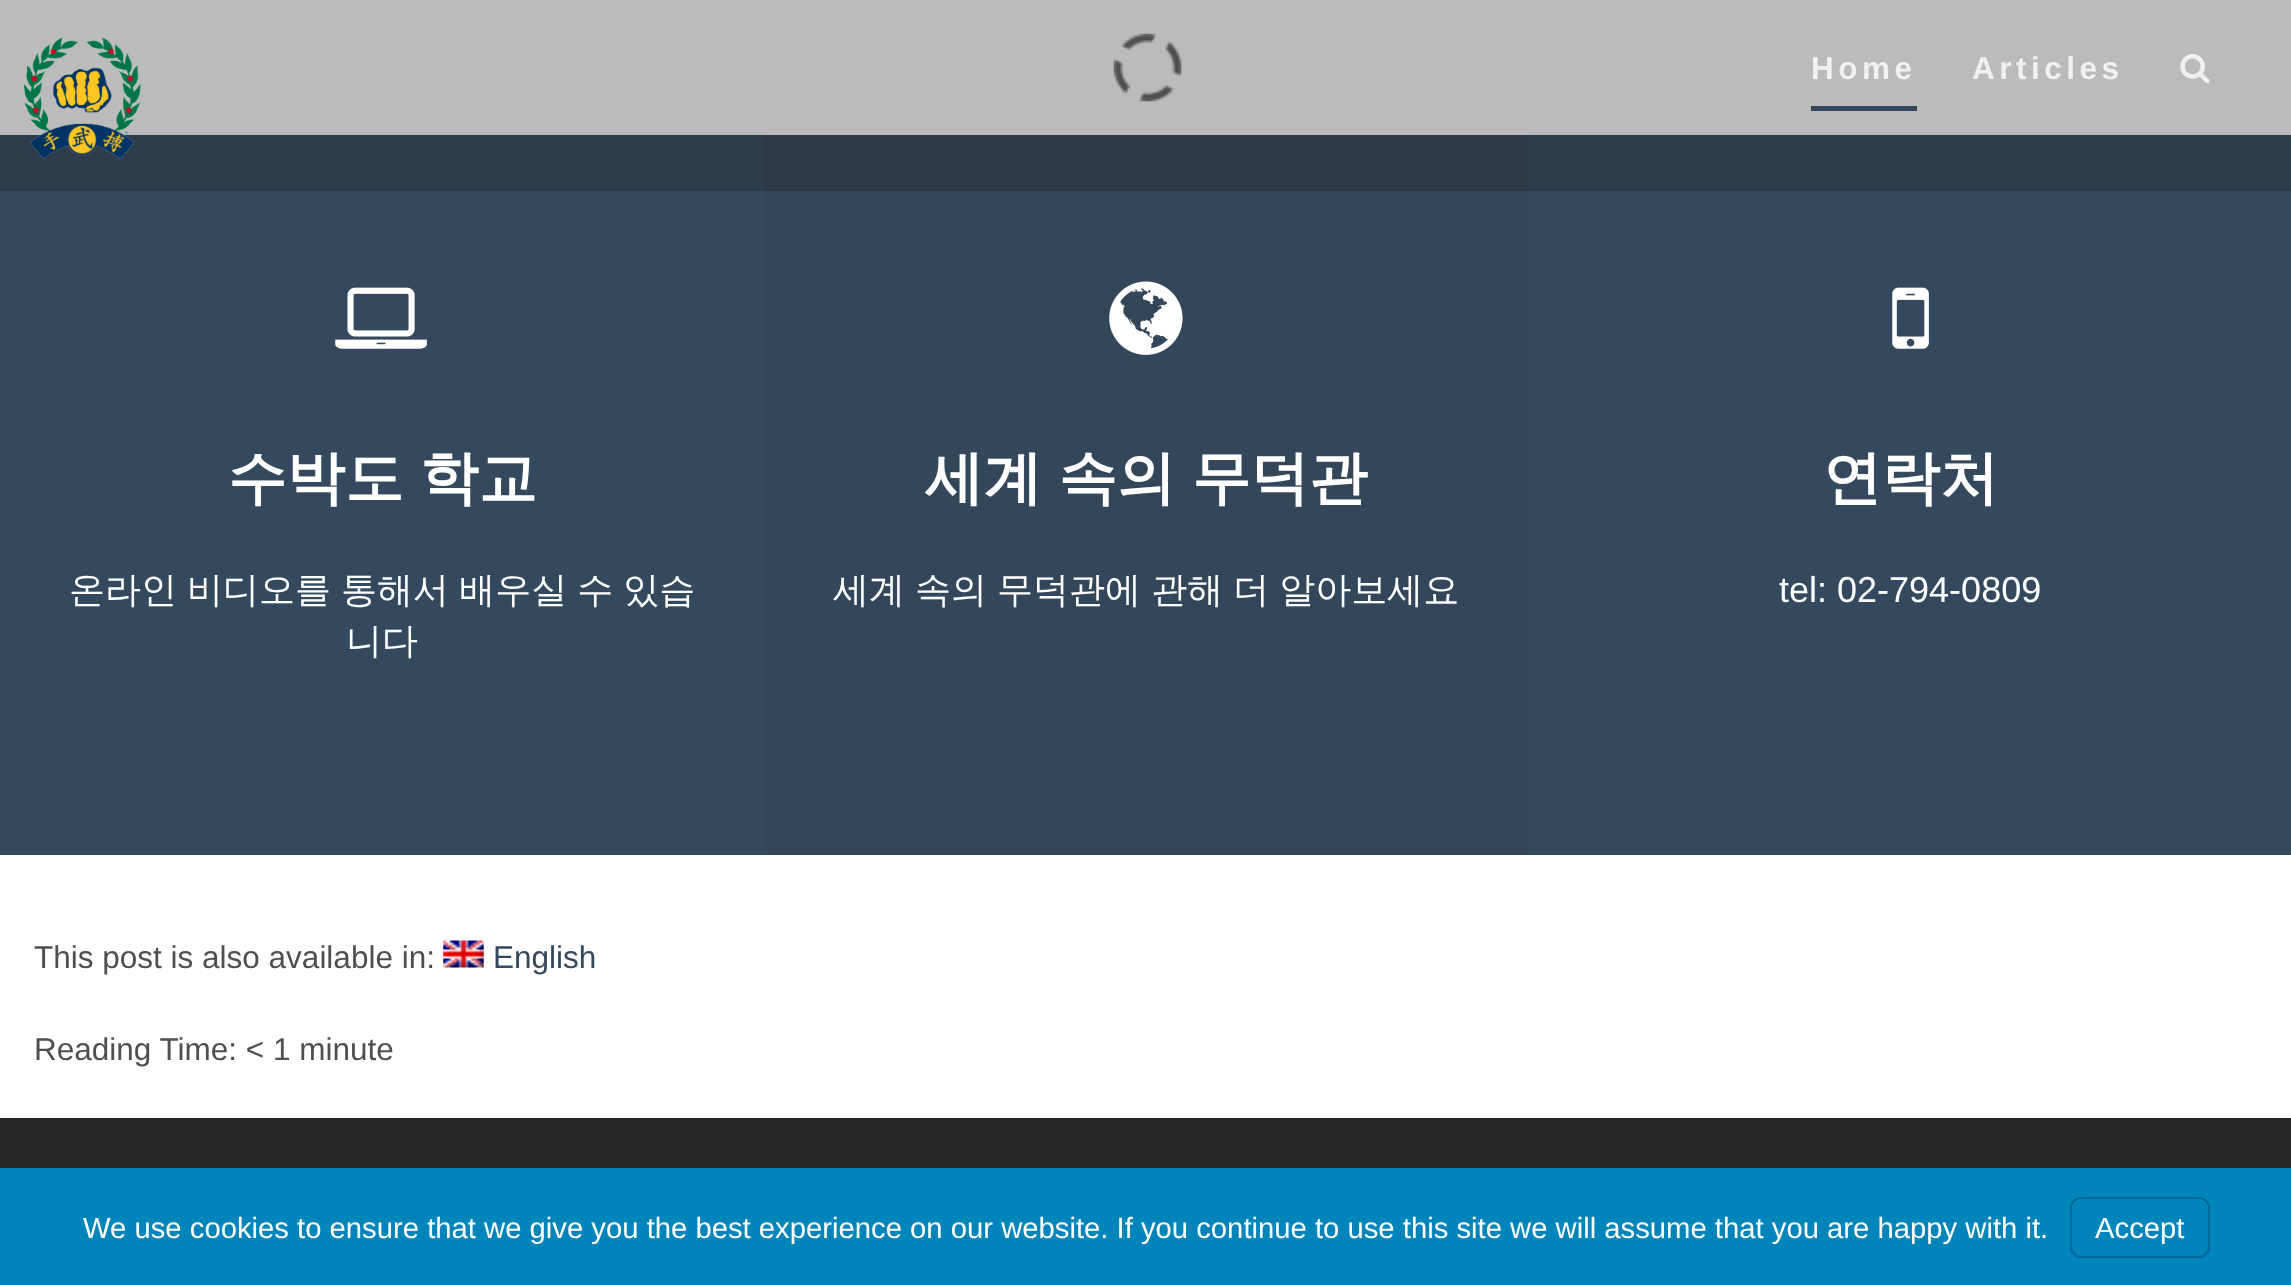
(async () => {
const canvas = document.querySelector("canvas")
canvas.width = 2291
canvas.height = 1285
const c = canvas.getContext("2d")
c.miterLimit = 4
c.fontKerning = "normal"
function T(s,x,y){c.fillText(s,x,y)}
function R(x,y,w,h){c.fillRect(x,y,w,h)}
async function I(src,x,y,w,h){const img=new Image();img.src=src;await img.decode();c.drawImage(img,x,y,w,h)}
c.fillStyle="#fff"
R(0,0,2291,1285)
c.fillStyle="#bbb"
R(0,0,2291,135)
c.fillStyle="#2d3b4a"
R(0,135,2291,56)
await I("1.png",23,37,119,123)
c.fillStyle="#34495e"
R(1811,106,106,5)
c.letterSpacing="4.5px"
c.font="bold 31.5px Liberation Sans"
c.fillStyle="#f1f1f1"
T("Home",1811,79)
T("Articles",1972,79)
await I("2.png",2180,54,30,30)
await I("3.png",1113,33,69,69)
c.fillStyle="#34495e"
R(0,191,2291,664)
await I("4.png",335,287,92,62)
c.letterSpacing="0px"
c.wordSpacing="-1px"
c.font="bold 58.5px WenQuanYi Zen Hei"
c.fillStyle="#fff"
T("수박도 학교",228,498)
c.wordSpacing="-0.75px"
c.font="500 36px WenQuanYi Zen Hei"
T("온라인 비디오를 통해서 배우실 수 있습",69,602)
c.wordSpacing="0px"
T("니다",346,653)
c.fillStyle="#34465a"
R(765,191,763,664)
c.fillStyle="#2d3947"
R(765,135,763,56)
await I("5.png",1109,281,74,74)
c.wordSpacing="-1px"
c.font="bold 58.5px WenQuanYi Zen Hei"
c.fillStyle="#fff"
T("세계 속의 무덕관",925,498)
c.wordSpacing="-0.75px"
c.font="500 36px WenQuanYi Zen Hei"
T("세계 속의 무덕관에 관해 더 알아보세요",833,602)
await I("6.png",1892,287,37,62)
c.wordSpacing="0px"
c.font="bold 58.5px WenQuanYi Zen Hei"
T("연락처",1823,498)
c.font="36px Liberation Sans"
T("tel: 02-794-0809",1779,602)
c.font="31.5px Liberation Sans"
c.fillStyle="#4d5051"
T("This post is also available in:",34,968)
await I("7.png",443,940,41,28)
c.fillStyle="#34495e"
T("English",493,968)
c.fillStyle="#4d5051"
T("Reading Time: < 1 minute",34,1060)
c.fillStyle="#262626"
R(0,1118,2291,50)
c.fillStyle="#0085ba"
R(0,1168,2291,117)
c.font="29.25px Liberation Sans"
c.fillStyle="#fff"
T("We use cookies to ensure that we give you the best experience on our website. If you continue to use this site we will assume that you are happy with it.",83,1238)
c.beginPath()
c.roundRect(2071,1198,138,59,10)
c.strokeStyle="#006799"
c.lineWidth=2
c.stroke()
T("Accept",2095,1238)
})()
